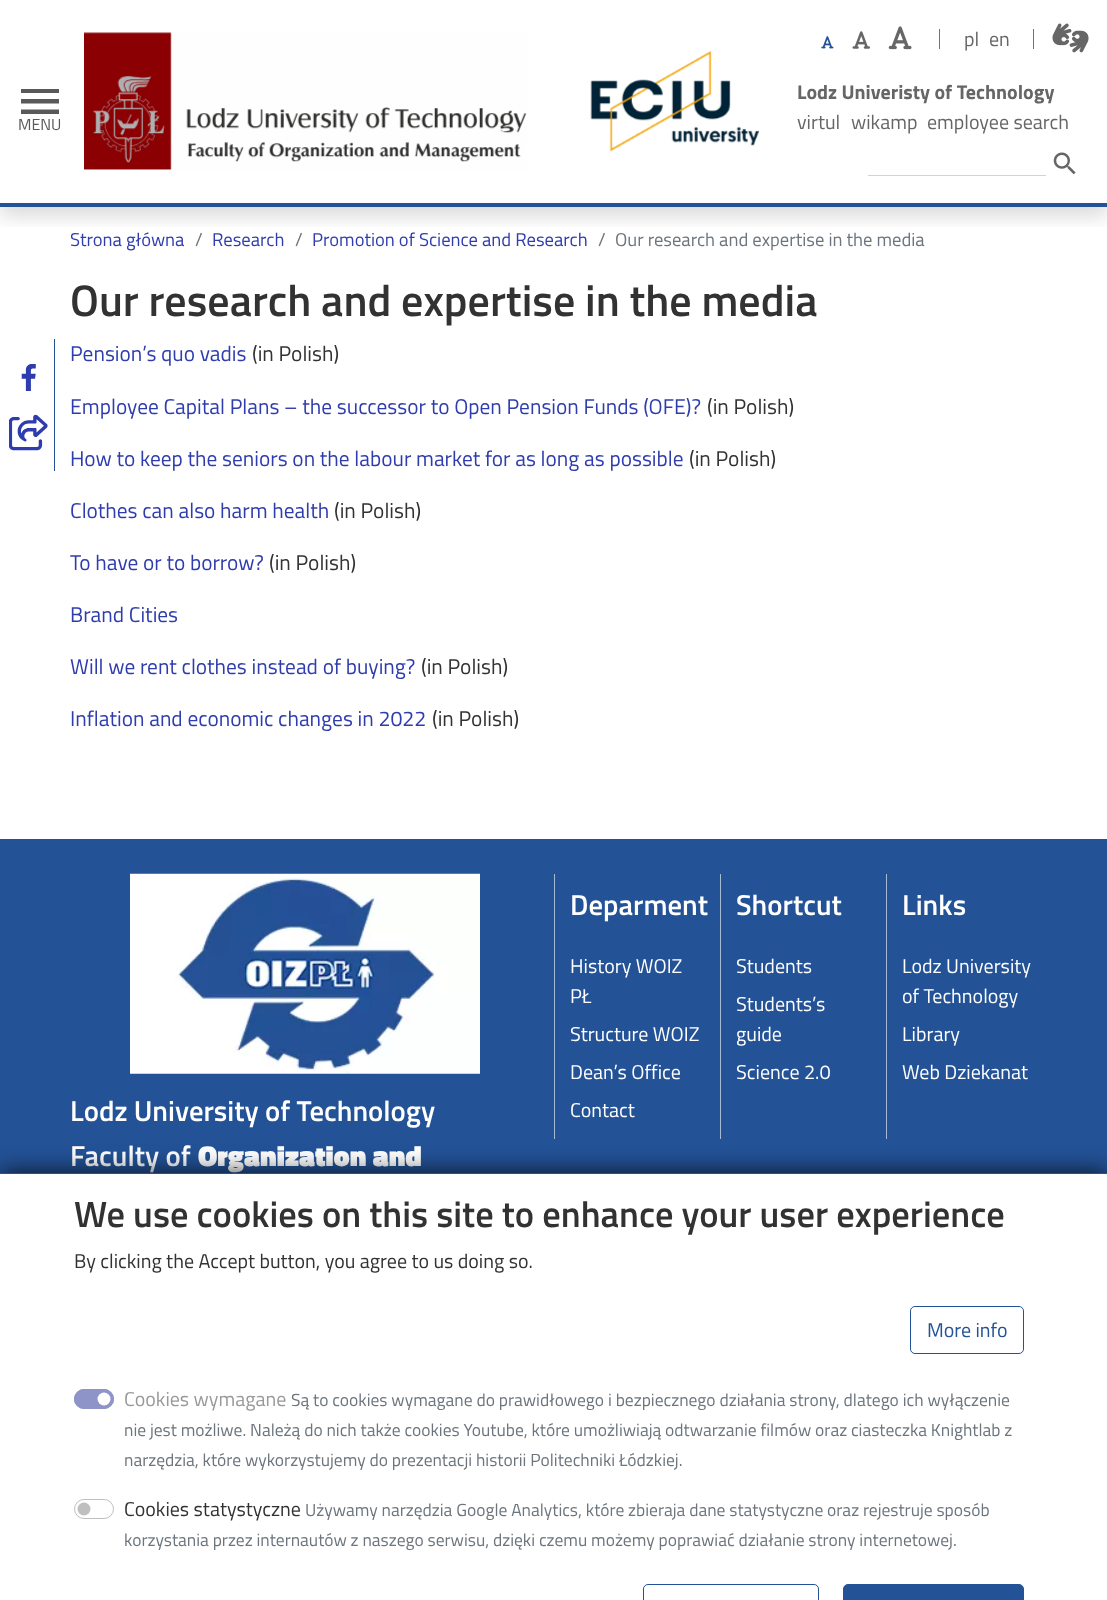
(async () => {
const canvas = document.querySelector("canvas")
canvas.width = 1107
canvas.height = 1600
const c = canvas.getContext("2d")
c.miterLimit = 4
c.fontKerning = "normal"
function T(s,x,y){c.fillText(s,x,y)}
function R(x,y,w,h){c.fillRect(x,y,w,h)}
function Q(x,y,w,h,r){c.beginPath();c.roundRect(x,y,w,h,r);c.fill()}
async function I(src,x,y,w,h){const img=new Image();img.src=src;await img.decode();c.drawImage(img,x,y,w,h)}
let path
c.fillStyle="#fff"
R(0,0,1107,1600)
c.save()
c.beginPath()
c.rect(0,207,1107,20)
c.clip()
c.fillStyle="#00000026"
c.filter="blur(10px)"
c.beginPath()
c.rect(0,10,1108,206)
c.fill()
c.filter="none"
c.restore()
c.fillStyle="#235296"
R(0,203,1107,4)
c.fillStyle="#595959"
path = new Path2D("M21 89h38v4h-38zm0 14.5v-4.5h38v4.5zm0 10.5v-4.5h38v4.5z")
c.fill(path)
c.font="16px Titillium Web"
T("MENU",18,130)
await I("1.png",84,32,443,138)
await I("2.png",590,51,169,101)
await I("3.png",821,36,13,13)
await I("4.png",852,31,18,18)
await I("5.png",888,26,24,24)
c.fillStyle="#6c757d"
R(939,29,1,20)
c.font="20px Titillium Web"
c.fillStyle="#666"
T("pl",964,46)
T("en",989,46)
c.fillStyle="#6c757d"
R(1033,29,1,20)
await I("6.png",1052,23,37,30)
c.font="bold 20px Titillium Web"
c.fillStyle="#666"
T("Lodz Univeristy of Technology",797,99)
c.font="20px Titillium Web"
T("virtul",797,129)
T("wikamp",851,129)
T("employee search",927,129)
await I("7.png",1053,152,23,23)
c.fillStyle="#ced4da"
R(868,175,178,1)
c.font="18.6px Titillium Web"
c.fillStyle="#2e3cae"
T("Strona główna",70,246)
c.fillStyle="#6c757d"
T("/",195,246)
c.fillStyle="#2e3cae"
T("Research",212,246)
c.fillStyle="#6c757d"
T("/",295,246)
c.fillStyle="#2e3cae"
T("Promotion of Science and Research",312,246)
c.fillStyle="#6c757d"
T("/",598,246)
T("Our research and expertise in the media",615,246)
c.font="600 44.1px Titillium Web"
c.fillStyle="#323232"
T("Our research and expertise in the media",70,316)
c.fillStyle="#235296"
R(54,339,1,132)
await I("8.png",21,364,15,27)
await I("9.png",9,414,39,37)
c.font="21.4px Titillium Web"
c.fillStyle="#2e3cae"
T("Pension’s quo vadis",70,361)
c.fillStyle="#323232"
T("(in Polish)",252,361)
c.fillStyle="#2e3cae"
T("Employee Capital Plans – the successor to Open Pension Funds (OFE)?",70,414)
c.fillStyle="#323232"
T("(in Polish)",707,414)
c.fillStyle="#2e3cae"
T("How to keep the seniors on the labour market for as long as possible",70,466)
c.fillStyle="#323232"
T("(in Polish)",689,466)
c.fillStyle="#2e3cae"
T("Clothes can also harm health",70,518)
c.fillStyle="#323232"
T("(in Polish)",334,518)
c.fillStyle="#2e3cae"
T("To have or to borrow?",70,570)
c.fillStyle="#323232"
T("(in Polish)",269,570)
c.fillStyle="#2e3cae"
T("Brand Cities",70,622)
T("Will we rent clothes instead of buying?",70,674)
c.fillStyle="#323232"
T("(in Polish)",421,674)
c.fillStyle="#2e3cae"
T("Inflation and economic changes in 2022",70,726)
c.fillStyle="#323232"
T("(in Polish)",432,726)
c.fillStyle="#235296"
R(0,839,1107,334)
c.fillStyle="#a7bad5"
R(554,874,1,265)
c.font="600 28.75px Titillium Web"
c.fillStyle="#fff"
T("Deparment",570,915)
c.font="20px Titillium Web"
T("History WOIZ",570,973)
T("PŁ",570,1003)
T("Structure WOIZ",570,1041)
T("Dean’s Office",570,1079)
T("Contact",570,1117)
c.fillStyle="#a7bad5"
R(720,874,1,265)
c.font="600 28.75px Titillium Web"
c.fillStyle="#fff"
T("Shortcut",736,915)
c.font="20px Titillium Web"
T("Students",736,973)
T("Students’s",736,1011)
T("guide",736,1041)
T("Science 2.0",736,1079)
c.fillStyle="#a7bad5"
R(886,874,1,265)
c.font="600 28.75px Titillium Web"
c.fillStyle="#fff"
T("Links",902,915)
c.font="20px Titillium Web"
T("Lodz University",902,973)
T("of Technology",902,1003)
T("Library",902,1041)
T("Web Dziekanat",902,1079)
await I("10.png",130,873,350,201)
c.font="600 28.75px Titillium Web"
T("Lodz University of Technology",70,1121)
T("Faculty of",70,1166)
c.font="900 28.75px Titillium Web"
T("Organization and",198,1166)
c.fillStyle="#000000cc"
c.filter="blur(12.5px)"
c.beginPath()
c.rect(0,1173,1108,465)
c.fill()
c.filter="none"
c.fillStyle="#fff"
R(0,1174,1107,426)
c.fillStyle="#235296"
R(0,1173,1107,1)
c.font="600 36.5px Titillium Web"
c.fillStyle="#323232"
T("We use cookies on this site to enhance your user experience",74,1227)
c.font="20px Titillium Web"
T("By clicking the Accept button, you agree to us doing so.",74,1268)
c.beginPath()
c.roundRect(910.5,1306.5,113,47,4.5)
c.strokeStyle="#235296"
c.stroke()
c.fillStyle="#235296"
T("More info",927,1337)
c.fillStyle="#8e94c8"
Q(74,1389,40,20,10)
c.fillStyle="#fff"
c.beginPath()
c.arc(104,1399,6.5,0,7)
c.fill()
c.beginPath()
c.roundRect(74.5,1389.5,39,19,9.5)
c.strokeStyle="#8e94c8"
c.stroke()
c.fillStyle="#999"
T("Cookies wymagane",124,1406)
c.font="17.5px Titillium Web"
c.fillStyle="#6c757d"
T("Są to cookies wymagane do prawidłowego i bezpiecznego działania strony, dlatego ich wyłączenie",291,1406)
T("nie jest możliwe. Należą do nich także cookies Youtube, które umożliwiają odtwarzanie filmów oraz ciasteczka Knightlab z",124,1436)
T("narzędzia, które wykorzystujemy do prezentacji historii Politechniki Łódzkiej.",124,1466)
c.fillStyle="#bfbfbf"
c.beginPath()
c.arc(84,1509,6.5,0,7)
c.fill()
c.beginPath()
c.roundRect(74.5,1499.5,39,19,9.5)
c.strokeStyle="#bfbfbf"
c.stroke()
c.font="20px Titillium Web"
c.fillStyle="#323232"
T("Cookies statystyczne",124,1516)
c.font="17.5px Titillium Web"
c.fillStyle="#6c757d"
T("Używamy narzędzia Google Analytics, które zbieraja dane statystyczne oraz rejestruje sposób",305,1516)
T("korzystania przez internautów z naszego serwisu, dzięki czemu możemy poprawiać działanie strony internetowej.",124,1546)
c.beginPath()
c.roundRect(643.5,1584.5,175,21,4.5)
c.strokeStyle="#235296"
c.stroke()
c.fillStyle="#235296"
c.beginPath()
c.roundRect(843.5,1584.5,180,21,4.5)
c.fill()
c.stroke()
})()
